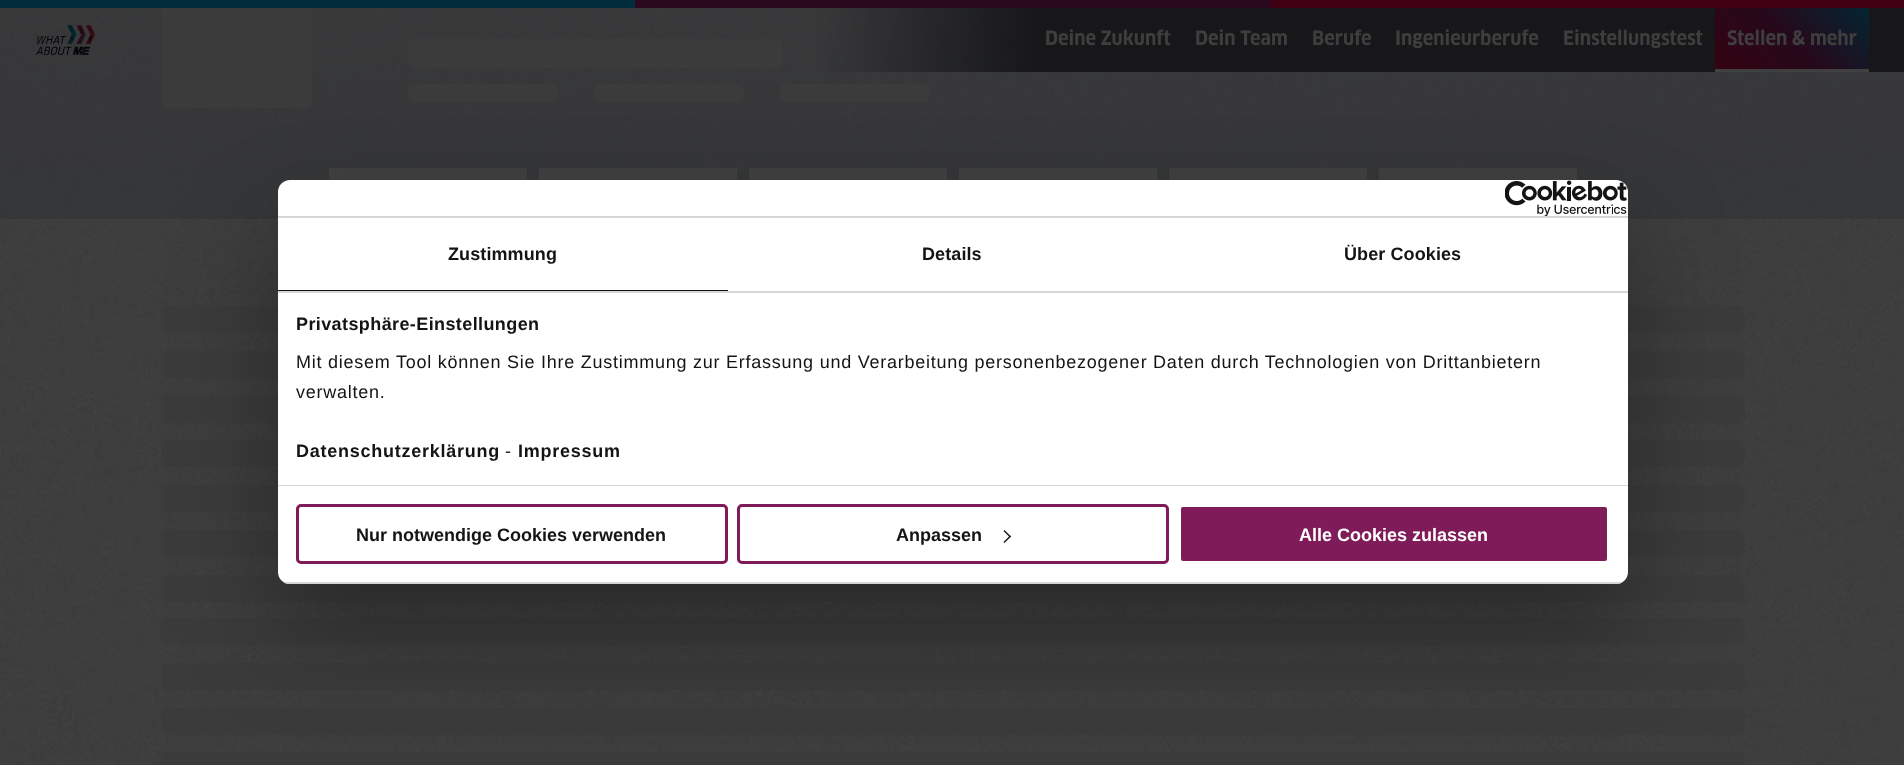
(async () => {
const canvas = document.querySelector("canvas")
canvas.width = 1904
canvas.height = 765
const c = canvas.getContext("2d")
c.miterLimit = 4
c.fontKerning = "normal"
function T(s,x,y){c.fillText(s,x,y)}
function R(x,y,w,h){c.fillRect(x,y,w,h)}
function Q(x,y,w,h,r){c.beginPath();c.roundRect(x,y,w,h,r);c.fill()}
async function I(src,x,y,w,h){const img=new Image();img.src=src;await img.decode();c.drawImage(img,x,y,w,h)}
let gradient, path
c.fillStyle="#fff"
R(0,0,1904,765)
await I("1.png",0,8,1904,757)
c.fillStyle="#3b3b3b"
Q(162,-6,150,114,6)
Q(408,39,375,29,6)
Q(408,84,150,18,6)
Q(594,84,150,18,6)
Q(780,84,150,18,6)
c.fillStyle="#2e303380"
R(0,168,1904,51)
c.fillStyle="#404040"
R(329,168,198,12)
R(539,168,198,12)
R(749,168,198,12)
R(959,168,198,12)
R(1169,168,198,12)
R(1379,168,198,12)
c.fillStyle="#3b3b3b"
Q(161,306,1584,27,6)
Q(161,351,1584,27,6)
Q(161,396,1584,27,6)
Q(161,440,1584,27,6)
Q(161,485,1584,27,6)
Q(161,530,1584,27,6)
Q(161,575,1584,27,6)
Q(161,618,1584,27,6)
Q(161,663,1584,27,6)
Q(161,708,1584,27,6)
Q(161,752,1584,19,6)
c.fillStyle="#002c3b"
R(0,0,635,8)
c.fillStyle="#2a091e"
R(635,0,636,8)
c.fillStyle="#400012"
R(1271,0,633,8)
await I("2.png",36,25,59,30)
c.fillStyle="#060609a6"
R(1034,8,150,64)
c.font="bold 19.5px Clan"
c.fillStyle="#3e3e3e"
T("Deine Zukunft",1045,45)
c.fillStyle="#060609a6"
R(1184,8,117,64)
c.fillStyle="#3e3e3e"
T("Dein Team",1195,45)
c.fillStyle="#060609a6"
R(1301,8,82,64)
c.fillStyle="#3e3e3e"
T("Berufe",1312,45)
c.fillStyle="#060609a6"
R(1383,8,168,64)
c.fillStyle="#3e3e3e"
T("Ingenieurberufe",1395,45)
c.fillStyle="#060609a6"
R(1551,8,164,64)
c.fillStyle="#3e3e3e"
T("Einstellungstest",1563,45)
gradient = c.createLinearGradient(1846,-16,1738,92)
gradient.addColorStop(0,"#002c3b")
gradient.addColorStop(.49,"#2a091e")
gradient.addColorStop(1,"#400012")
c.fillStyle = gradient
R(1715,8,154,61)
c.fillStyle="#0d0f1433"
R(1715,8,154,61)
c.fillStyle="#404040"
R(1715,69,154,3)
c.fillStyle="#3e3e3e"
T("Stellen & mehr",1727,45)
c.fillStyle="#060609a6"
R(1869,8,35,64)
c.fillStyle="#0000004d"
c.filter="blur(51px)"
c.beginPath()
c.roundRect(278,228,1350,404,12)
c.fill()
c.filter="none"
c.fillStyle="#fff"
Q(278,180,1350,404,12)
c.fillStyle="#d6d6d6"
R(278,216,1350,2)
await I("3.png",1505,180,122,36)
R(278,291,1350,2)
c.fillStyle="#141414"
R(278,290,450,1)
c.letterSpacing="0.1px"
c.font="bold 18px Liberation Sans"
T("Zustimmung",448,260)
T("Details",922,260)
T("Über Cookies",1344,260)
c.fillStyle="#d6d6d6"
R(278,485,1350,1)
c.letterSpacing="0.4px"
c.fillStyle="#141414"
T("Privatsphäre-Einstellungen",296,330)
c.letterSpacing="0.75px"
c.font="18px Liberation Sans"
T("Mit diesem Tool können Sie Ihre Zustimmung zur Erfassung und Verarbeitung personenbezogener Daten durch Technologien von Drittanbietern",296,368)
T("verwalten.",296,398)
c.font="bold 18px Liberation Sans"
T("Datenschutzerklärung",296,457)
c.font="18px Liberation Sans"
T("-",505,457)
c.font="bold 18px Liberation Sans"
T("Impressum",518,457)
c.save()
c.beginPath()
c.roundRect(278,180,1350,404,12)
c.clip()
c.fillStyle="#d6d6d6"
R(278,582,1350,2)
c.restore()
c.beginPath()
c.roundRect(297.5,505.5,429,57,3.5)
c.strokeStyle="#7e1b58"
c.lineWidth=3
c.stroke()
c.letterSpacing="0px"
T("Nur notwendige Cookies verwenden",356,541)
c.beginPath()
c.roundRect(738.5,505.5,429,57,3.5)
c.stroke()
T("Anpassen",896,541)
path = new Path2D("M1004.5 530l6.5 6.5l-1 1l-6.5-6.5z")
c.fill(path)
path = new Path2D("M1010 535.5l1 1l-6.5 6.5l-1-1z")
c.fill(path)
c.fillStyle="#7e1b58"
c.beginPath()
c.roundRect(1179.5,505.5,429,57,3.5)
c.fill()
c.strokeStyle="#fff"
c.stroke()
c.fillStyle="#fff"
T("Alle Cookies zulassen",1299,541)
})()
